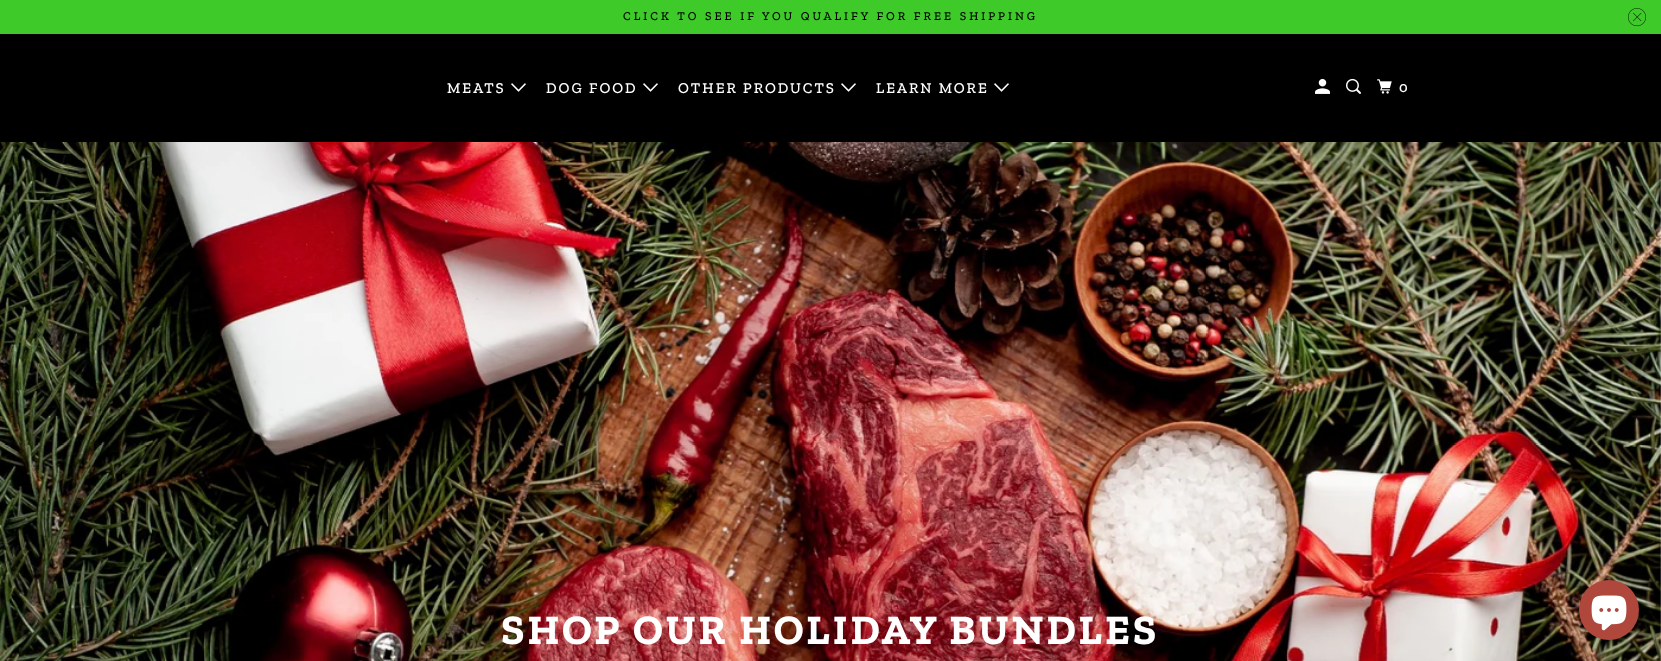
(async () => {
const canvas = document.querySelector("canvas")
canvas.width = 1661
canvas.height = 661
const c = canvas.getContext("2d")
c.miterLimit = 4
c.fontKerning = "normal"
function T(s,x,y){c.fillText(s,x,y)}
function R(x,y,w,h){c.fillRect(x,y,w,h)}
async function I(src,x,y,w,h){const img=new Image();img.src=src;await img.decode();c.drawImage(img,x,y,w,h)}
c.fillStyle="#fff"
R(0,0,1661,661)
c.fillStyle="#3ecb2a"
R(0,0,1661,34)
c.letterSpacing="3px"
c.font="500 12px Zilla Slab"
c.fillStyle="#000"
T("CLICK TO SEE IF YOU QUALIFY FOR FREE SHIPPING",623,20)
await I("1.png",1628,8,18,19)
R(0,34,1661,108)
c.letterSpacing="2px"
c.font="500 15px Zilla Slab"
c.fillStyle="#fff"
T("MEATS",447,93)
await I("2.png",511,83,15,9)
T("DOG FOOD",546,93)
await I("2.png",643,83,15,9)
T("OTHER PRODUCTS",678,93)
await I("2.png",841,83,15,9)
T("LEARN MORE",876,93)
await I("2.png",994,83,15,9)
await I("3.png",1315,78,15,16)
await I("4.png",1346,78,15,16)
await I("5.png",1377,79,15,15)
T("0",1399,92)
await I("6.png",0,142,1661,519)
c.letterSpacing="3px"
c.font="bold 42px Zilla Slab"
T("SHOP OUR HOLIDAY BUNDLES",501,644)
c.fillStyle="#af473c"
c.beginPath()
c.arc(1609,610,30,0,7)
c.fill()
await I("7.png",1591,595,36,36)
})()
